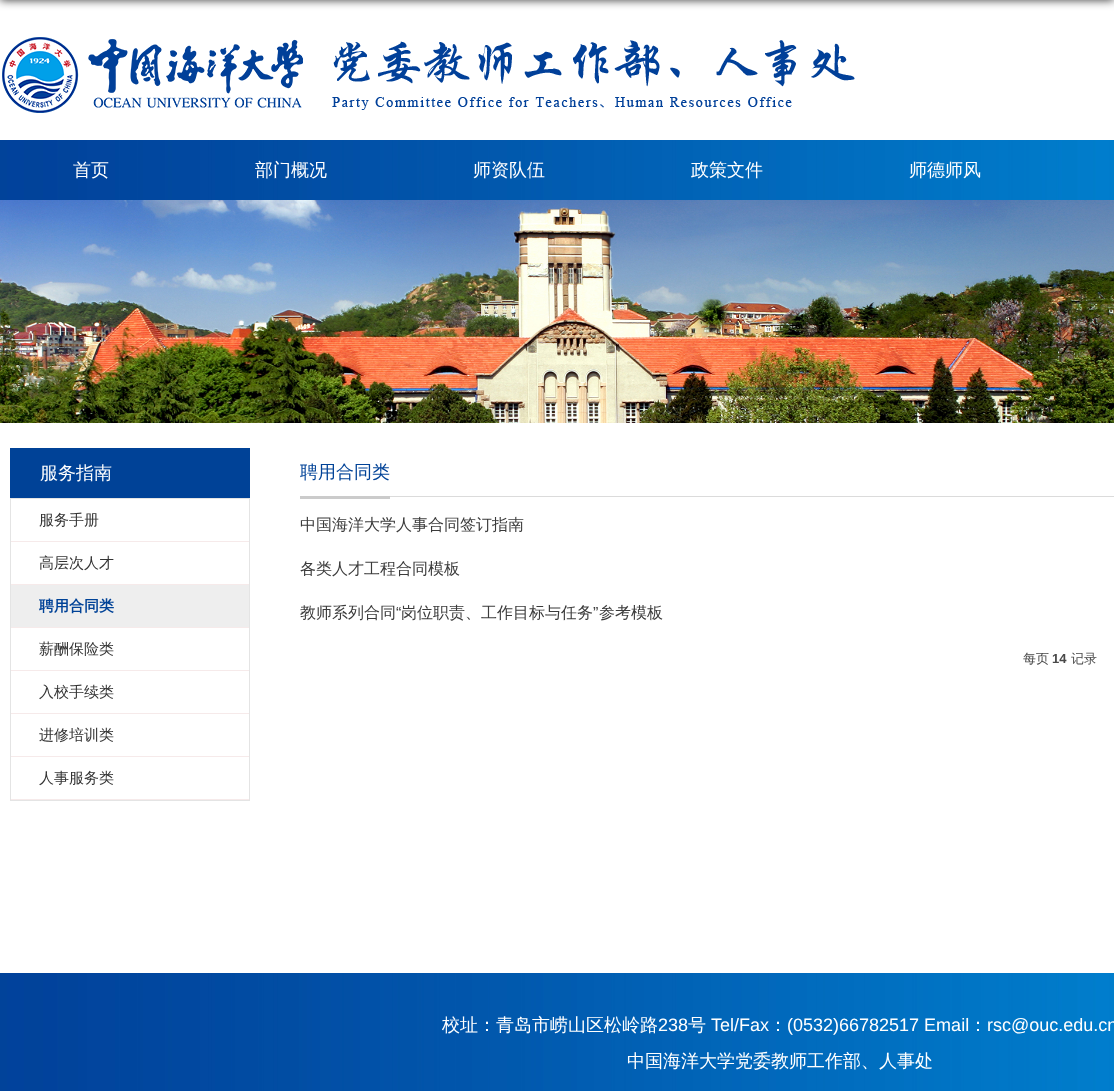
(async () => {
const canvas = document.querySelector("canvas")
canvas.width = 1114
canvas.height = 1091
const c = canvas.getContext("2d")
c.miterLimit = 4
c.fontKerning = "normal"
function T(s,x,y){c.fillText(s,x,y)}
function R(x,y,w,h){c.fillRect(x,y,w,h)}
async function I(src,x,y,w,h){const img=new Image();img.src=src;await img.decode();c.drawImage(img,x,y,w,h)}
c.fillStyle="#fff"
R(0,0,1114,1091)
c.fillStyle="#000000cc"
c.filter="blur(5px)"
c.beginPath()
c.rect(0,-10,1114,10)
c.fill()
c.filter="none"
await I("1.png",2,37,853,76)
await I("2.png",0,140,1114,60)
c.font="500 18px WenQuanYi Zen Hei"
c.fillStyle="#fff"
T("首页",73,176)
T("部门概况",255,176)
T("师资队伍",473,176)
T("政策文件",691,176)
T("师德师风",909,176)
await I("3.png",0,200,1114,223)
c.fillStyle="#004297"
R(10,448,240,50)
c.fillStyle="#fff"
T("服务指南",40,479)
c.strokeStyle="#e4e4e4"
c.strokeRect(10.5,498.5,239,302)
c.fillStyle="#f6eaea"
R(11,541,238,1)
c.font="500 15px WenQuanYi Zen Hei"
c.fillStyle="#333"
T("服务手册",39,525)
c.fillStyle="#f6eaea"
R(11,584,238,1)
c.fillStyle="#333"
T("高层次人才",39,568)
c.fillStyle="#eee"
R(11,585,238,42)
c.fillStyle="#f6eaea"
R(11,627,238,1)
c.font="bold 15px WenQuanYi Zen Hei"
c.fillStyle="#004297"
T("聘用合同类",39,611)
c.fillStyle="#f6eaea"
R(11,670,238,1)
c.font="500 15px WenQuanYi Zen Hei"
c.fillStyle="#333"
T("薪酬保险类",39,654)
c.fillStyle="#f6eaea"
R(11,713,238,1)
c.fillStyle="#333"
T("入校手续类",39,697)
c.fillStyle="#f6eaea"
R(11,756,238,1)
c.fillStyle="#333"
T("进修培训类",39,740)
c.fillStyle="#f6eaea"
R(11,799,238,1)
c.fillStyle="#333"
T("人事服务类",39,783)
c.fillStyle="#dbdbdb"
R(390,496,724,1)
c.fillStyle="#cbcbcb"
R(300,496,90,3)
c.font="500 18px WenQuanYi Zen Hei"
c.fillStyle="#004297"
T("聘用合同类",300,478)
c.font="500 16px WenQuanYi Zen Hei"
c.fillStyle="#3b3b3b"
T("中国海洋大学人事合同签订指南",300,530)
T("各类人才工程合同模板",300,574)
T("教师系列合同",300,618)
c.font="16px Liberation Sans"
T("“",396,618)
c.font="500 16px WenQuanYi Zen Hei"
T("岗位职责、工作目标与任务",401,618)
c.font="16px Liberation Sans"
T("”",593,618)
c.font="500 16px WenQuanYi Zen Hei"
T("参考模板",599,618)
c.font="500 13px WenQuanYi Zen Hei"
c.fillStyle="#494949"
T("每页",1023,663)
c.font="bold 13px Liberation Sans"
T("14",1052,663)
c.font="500 13px WenQuanYi Zen Hei"
T("记录",1071,663)
await I("4.png",0,973,1114,118)
c.font="500 18px WenQuanYi Zen Hei"
c.fillStyle="#fff"
T("校址：青岛市崂山区松岭路",442,1031)
c.font="18px Liberation Sans"
T("238",658,1031)
c.font="500 18px WenQuanYi Zen Hei"
T("号",688,1031)
c.font="18px Liberation Sans"
T("Tel/Fax",711,1031)
c.font="500 18px WenQuanYi Zen Hei"
T("：",769,1031)
c.font="18px Liberation Sans"
T("(0532)66782517 Email",787,1031)
c.font="500 18px WenQuanYi Zen Hei"
T("：",969,1031)
c.font="18px Liberation Sans"
T("rsc@ouc.edu.cn",987,1031)
c.font="500 18px WenQuanYi Zen Hei"
T("中国海洋大学党委教师工作部、人事处",627,1067)
})()
